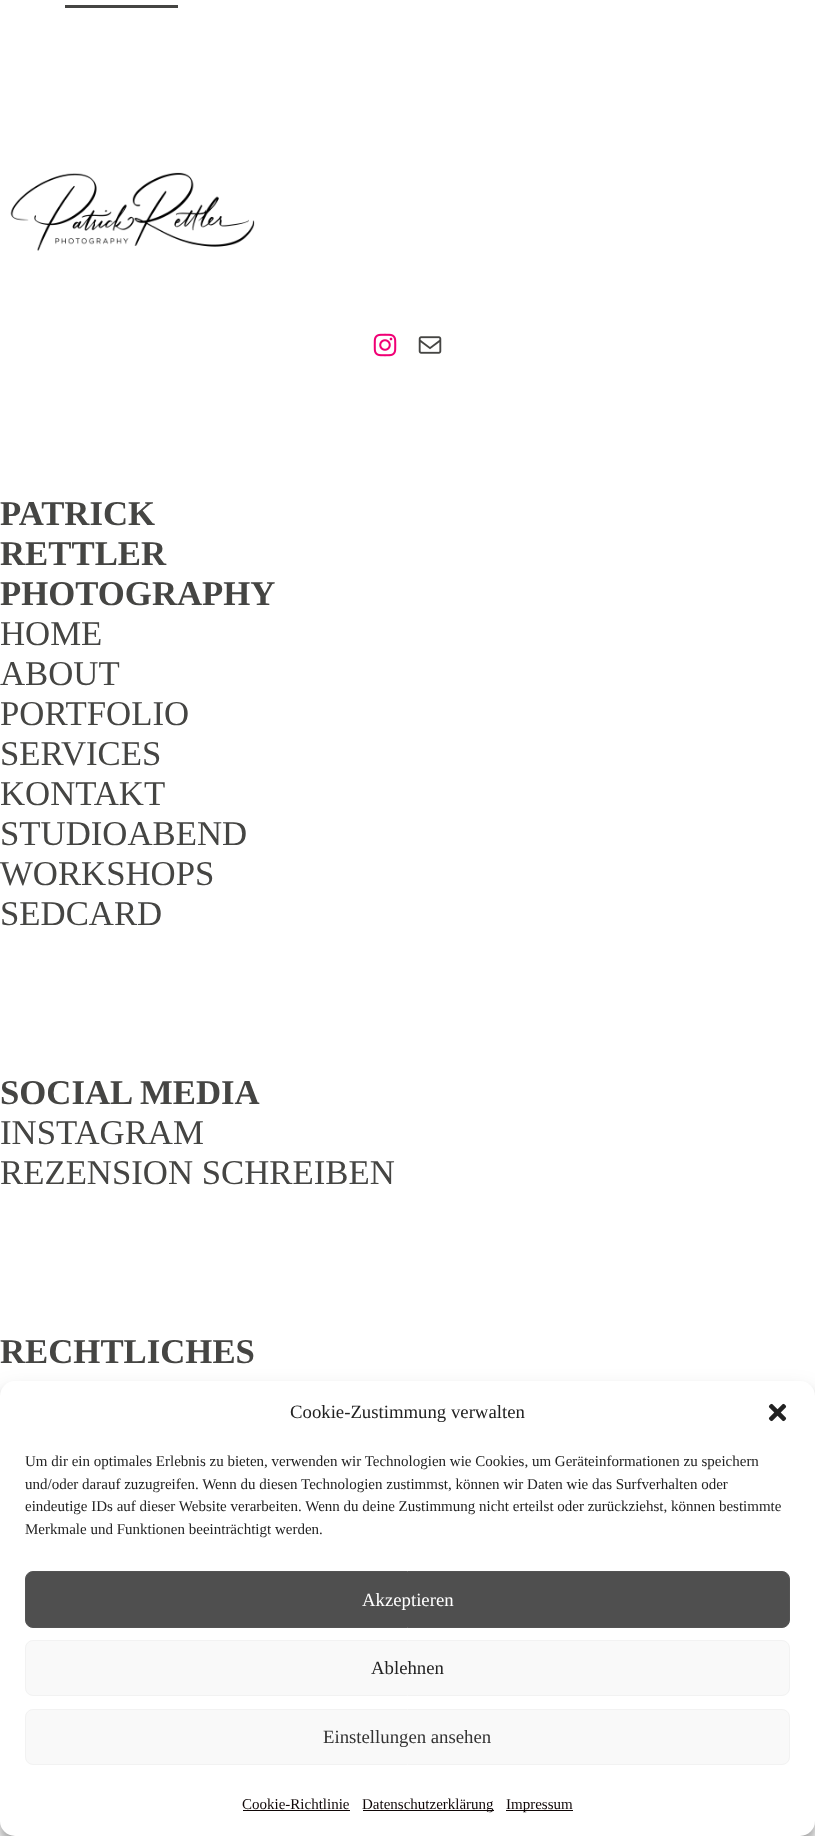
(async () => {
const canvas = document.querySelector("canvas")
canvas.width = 815
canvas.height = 1836
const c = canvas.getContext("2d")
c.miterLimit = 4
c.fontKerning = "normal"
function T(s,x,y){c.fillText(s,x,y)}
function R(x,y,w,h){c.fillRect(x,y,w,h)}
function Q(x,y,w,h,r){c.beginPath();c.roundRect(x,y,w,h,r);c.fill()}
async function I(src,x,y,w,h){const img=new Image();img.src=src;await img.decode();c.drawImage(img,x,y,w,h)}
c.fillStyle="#fff"
R(0,0,815,1836)
c.fillStyle="#454543"
R(65,5,113,3)
await I("1.png",10,172,245,79)
await I("2.png",373,333,24,24)
await I("3.png",418,336,24,18)
c.font="bold 34.75px Liberation Serif"
T("PATRICK",0,525)
T("RETTLER",0,565)
T("PHOTOGRAPHY",0,605)
c.font="34.75px Liberation Serif"
T("HOME",0,645)
T("ABOUT",0,685)
T("PORTFOLIO",0,725)
T("SERVICES",0,765)
T("KONTAKT",0,805)
T("STUDIOABEND",0,845)
T("WORKSHOPS",0,885)
T("SEDCARD",0,925)
c.font="bold 34.75px Liberation Serif"
T("SOCIAL MEDIA",0,1104)
c.font="34.75px Liberation Serif"
T("INSTAGRAM",0,1144)
T("REZENSION SCHREIBEN",0,1184)
c.font="bold 34.75px Liberation Serif"
T("RECHTLICHES",0,1363)
c.fillStyle="#0000003b"
c.filter="blur(4px)"
c.beginPath()
c.roundRect(0,1389,815,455,15)
c.fill()
c.filter="none"
c.fillStyle="#00000030"
c.filter="blur(12.5px)"
c.beginPath()
c.roundRect(0,1394,815,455,15)
c.fill()
c.filter="none"
c.fillStyle="#fff"
Q(0,1381,815,455,15)
c.font="18.75px Liberation Serif"
c.fillStyle="#222"
T("Cookie-Zustimmung verwalten",290,1418)
await I("4.png",768,1403,19,19)
c.font="15px Liberation Serif"
T("Um dir ein optimales Erlebnis zu bieten, verwenden wir Technologien wie Cookies, um Geräteinformationen zu speichern",25,1466)
T("und/oder darauf zuzugreifen. Wenn du diesen Technologien zustimmst, können wir Daten wie das Surfverhalten oder",25,1489)
T("eindeutige IDs auf dieser Website verarbeiten. Wenn du deine Zustimmung nicht erteilst oder zurückziehst, können bestimmte",25,1511)
T("Merkmale und Funktionen beeinträchtigt werden.",25,1534)
c.fillStyle="#4f4f4f"
c.beginPath()
c.roundRect(25.5,1571.5,764,56,7.5)
c.fill()
c.strokeStyle="#545454"
c.stroke()
c.font="18.75px Liberation Serif"
c.fillStyle="#fff"
T("Akzeptieren",362,1606)
c.fillStyle="#f9f9f9"
c.beginPath()
c.roundRect(25.5,1640.5,764,55,7.5)
c.fill()
c.strokeStyle="#f2f2f2"
c.stroke()
c.fillStyle="#222"
T("Ablehnen",371,1674)
c.fillStyle="#f9f9f9"
c.beginPath()
c.roundRect(25.5,1709.5,764,55,7.5)
c.fill()
c.stroke()
c.fillStyle="#333"
T("Einstellungen ansehen",323,1743)
c.font="15px Liberation Serif"
c.fillStyle="#0f0707"
T("Cookie-Richtlinie",242,1809)
R(243,1810,107,1)
R(363,1810,131,1)
T("Datenschutzerklärung",362,1809)
R(506,1810,67,1)
T("Impressum",506,1809)
})()
